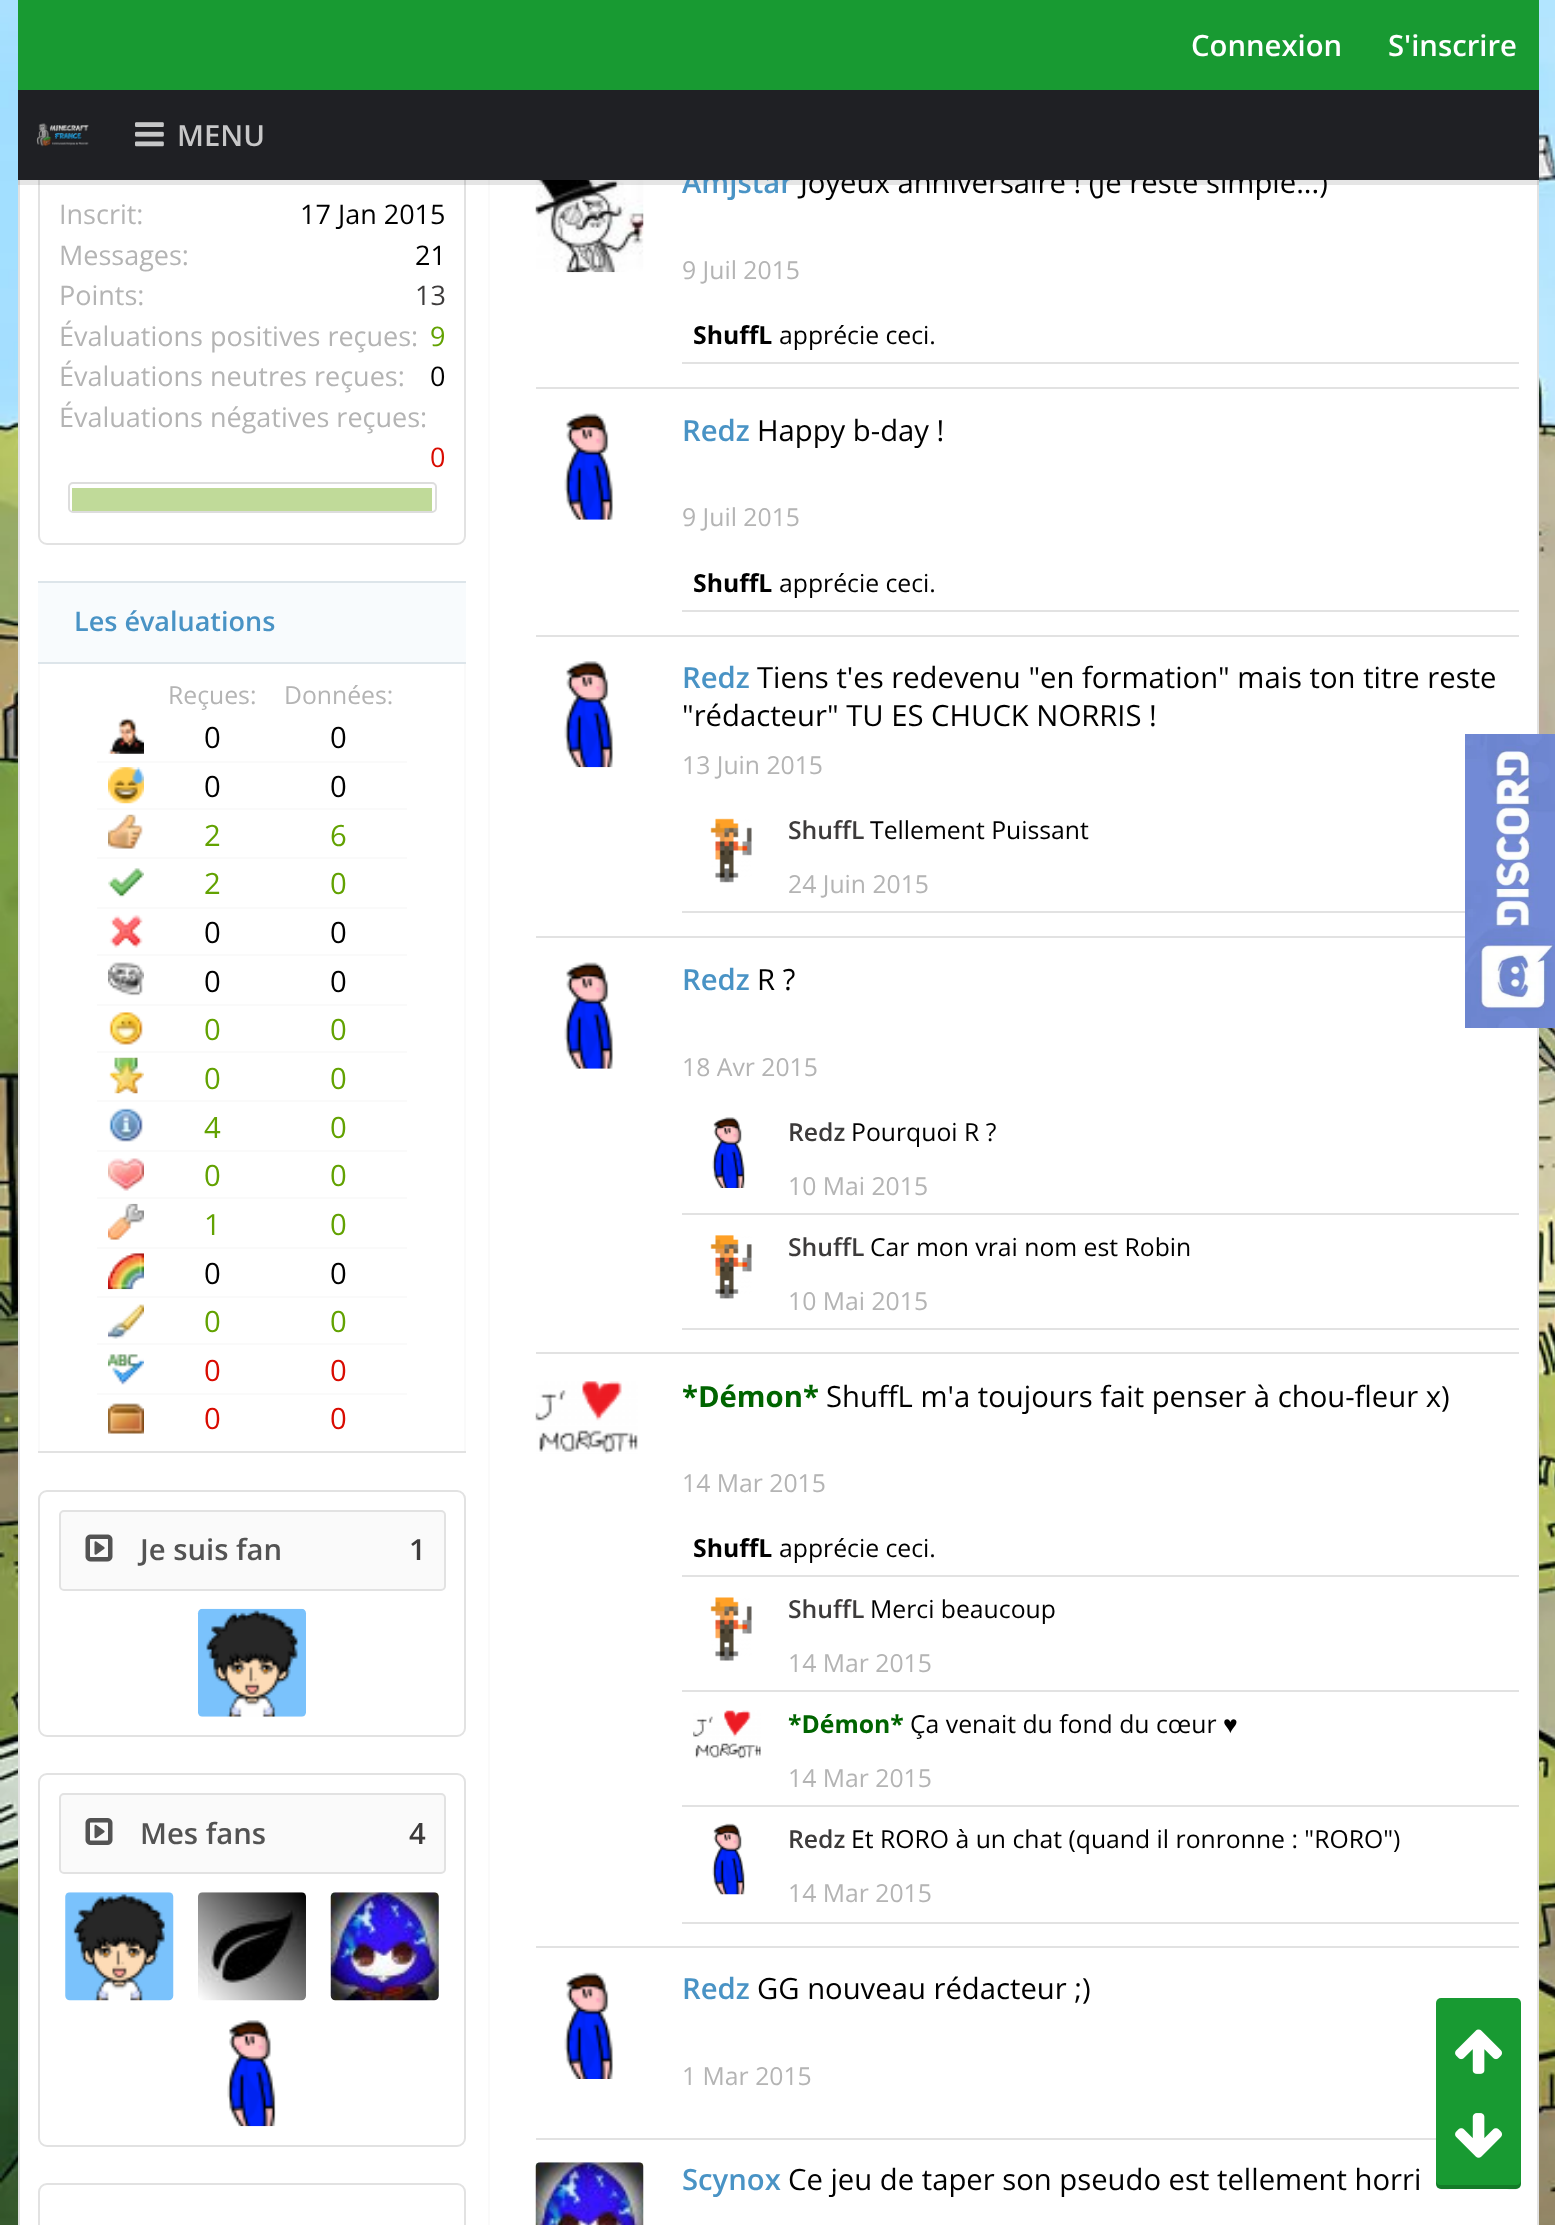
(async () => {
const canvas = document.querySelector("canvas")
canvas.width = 1555
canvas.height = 2225
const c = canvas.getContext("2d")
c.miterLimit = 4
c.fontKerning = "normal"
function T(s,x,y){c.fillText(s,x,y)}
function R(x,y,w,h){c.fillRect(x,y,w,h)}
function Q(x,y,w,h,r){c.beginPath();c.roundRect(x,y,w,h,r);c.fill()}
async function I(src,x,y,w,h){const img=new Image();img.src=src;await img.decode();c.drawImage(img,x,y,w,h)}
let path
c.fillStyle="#fff"
R(0,0,1555,2225)
await I("1.png",0,0,1555,2225)
c.fillStyle="#189a32"
R(18,0,1521,90)
c.font="600 29.25px Open Sans"
c.fillStyle="#fff"
T("Connexion",1191,56)
T("S'inscrire",1388,56)
R(20,180,1517,2045)
c.fillStyle="#e2e2e2"
R(1537,180,2,2045)
R(18,180,2,2045)
c.beginPath()
c.roundRect(39,96,426,448,8)
c.strokeStyle="#e2e2e2"
c.lineWidth=2
c.stroke()
c.fillStyle="#fafafa"
R(488,180,2,2045)
await I("26.png",535,180,109,93)
c.fillStyle="#0000001a"
R(18,180,1521,5)
c.fillStyle="#4993c5"
T("Amjstar",682,193)
c.font="29.25px Open Sans"
c.fillStyle="#000"
T("Joyeux anniversaire ! (Je reste simple...)",800,193)
c.fillStyle="#1f2024"
R(18,90,1521,90)
await I("2.png",36,123,53,24)
await I("3.png",135,122,29,25)
c.font="600 29.25px Open Sans"
c.fillStyle="#c7c7c8"
T("MENU",177,146)
c.font="27px Open Sans"
c.fillStyle="#b4b4b4"
T("Inscrit:",59,224)
c.fillStyle="#000"
T("17 Jan 2015",300,224)
c.fillStyle="#b4b4b4"
T("Messages:",59,265)
c.fillStyle="#000"
T("21",415,265)
c.fillStyle="#b4b4b4"
T("Points:",59,305)
c.fillStyle="#3d3b3b"
T("13",415,305)
c.fillStyle="#b4b4b4"
T("Évaluations positives reçues:",59,346)
c.fillStyle="#62a201"
T("9",430,346)
c.fillStyle="#b4b4b4"
T("Évaluations neutres reçues:",59,386)
c.fillStyle="#000"
T("0",430,386)
c.fillStyle="#b4b4b4"
T("Évaluations négatives reçues:",59,427)
c.fillStyle="#d90b00"
T("0",430,467)
c.beginPath()
c.roundRect(69,483,367,29,4)
c.strokeStyle="#ddd"
c.stroke()
c.fillStyle="#62a20166"
R(72,488,360,23)
c.fillStyle="#f8fbfd"
R(38,583,428,79)
c.fillStyle="#dde5ea"
R(38,581,428,2)
R(38,662,428,2)
c.font="600 27px Open Sans"
c.fillStyle="#4993c5"
T("Les évaluations",74,631)
c.fillStyle="#e2e2e2"
R(38,1451,428,2)
c.fillStyle="#fafafa"
R(464,664,2,787)
R(38,664,2,787)
c.font="24.75px Open Sans"
c.fillStyle="#b4b4b4"
T("Reçues:",168,704)
T("Données:",284,704)
await I("4.png",108,717,36,37)
c.font="29.25px Open Sans"
c.fillStyle="#000"
T("0",204,748)
T("0",330,748)
c.fillStyle="#fafafa"
R(97,761,310,2)
await I("5.png",108,767,36,37)
c.fillStyle="#000"
T("0",204,797)
T("0",330,797)
c.fillStyle="#fafafa"
R(97,808,310,2)
await I("6.png",108,814,35,35)
c.fillStyle="#62a201"
T("2",204,846)
T("6",330,846)
c.fillStyle="#fafafa"
R(97,857,310,2)
await I("7.png",108,868,36,30)
c.fillStyle="#62a201"
T("2",204,894)
T("0",330,894)
c.fillStyle="#fafafa"
R(97,907,310,2)
await I("8.png",109,914,34,34)
c.fillStyle="#000"
T("0",204,943)
T("0",330,943)
c.fillStyle="#fafafa"
R(97,954,310,2)
await I("9.png",108,962,36,34)
c.fillStyle="#000"
T("0",204,992)
T("0",330,992)
c.fillStyle="#fafafa"
R(97,1004,310,2)
await I("10.png",109,1012,34,33)
c.fillStyle="#62a201"
T("0",204,1040)
T("0",330,1040)
c.fillStyle="#fafafa"
R(97,1051,310,2)
await I("11.png",109,1057,35,37)
c.fillStyle="#62a201"
T("0",204,1089)
T("0",330,1089)
c.fillStyle="#fafafa"
R(97,1100,310,2)
await I("12.png",109,1108,34,34)
c.fillStyle="#62a201"
T("4",204,1138)
T("0",330,1138)
c.fillStyle="#fafafa"
R(97,1150,310,2)
await I("13.png",108,1158,36,33)
c.fillStyle="#62a201"
T("0",204,1186)
T("0",330,1186)
c.fillStyle="#fafafa"
R(97,1197,310,2)
await I("14.png",108,1203,36,37)
c.fillStyle="#62a201"
T("1",204,1235)
T("0",330,1235)
c.fillStyle="#fafafa"
R(97,1247,310,2)
await I("15.png",108,1253,36,37)
c.fillStyle="#000"
T("0",204,1284)
T("0",330,1284)
c.fillStyle="#fafafa"
R(97,1296,310,2)
await I("16.png",108,1304,36,35)
c.fillStyle="#62a201"
T("0",204,1332)
T("0",330,1332)
c.fillStyle="#fafafa"
R(97,1343,310,2)
await I("17.png",108,1354,36,31)
c.fillStyle="#d90b00"
T("0",204,1381)
T("0",330,1381)
c.fillStyle="#fafafa"
R(97,1393,310,2)
await I("18.png",108,1403,36,31)
c.fillStyle="#d90b00"
T("0",204,1429)
T("0",330,1429)
c.beginPath()
c.roundRect(39,1491,426,245,8)
c.strokeStyle="#e2e2e2"
c.stroke()
c.fillStyle="#fafafa"
c.beginPath()
c.roundRect(60,1511,385,79,4)
c.fill()
c.stroke()
await I("19.png",85,1534,28,28)
c.font="600 29.25px Open Sans"
c.fillStyle="#535353"
T("Je suis fan",140,1560)
c.fillStyle="#3d3b3b"
T("1",409,1560)
await I("20.png",197,1608,110,109)
c.beginPath()
c.roundRect(39,1774,426,372,8)
c.stroke()
c.fillStyle="#fafafa"
c.beginPath()
c.roundRect(60,1794,385,79,4)
c.fill()
c.stroke()
await I("21.png",85,1818,28,27)
c.fillStyle="#535353"
T("Mes fans",140,1844)
c.fillStyle="#3d3b3b"
T("4",409,1844)
await I("22.png",65,1892,109,109)
await I("23.png",198,1892,108,109)
await I("24.png",330,1892,109,109)
await I("25.png",227,2020,49,107)
c.beginPath()
c.roundRect(39,2184,426,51,8)
c.stroke()
c.fillStyle="#e2e2e2"
R(536,387,983,2)
c.font="24.75px Open Sans"
c.fillStyle="#b4b4b4"
T("9 Juil 2015",682,279)
c.fillStyle="#e2e2e2"
R(682,362,837,2)
c.font="bold 24.75px Open Sans"
c.fillStyle="#000"
T("ShuffL",693,344)
c.font="24.75px Open Sans"
T("apprécie ceci.",779,344)
c.fillStyle="#e2e2e2"
R(536,635,983,2)
await I("27.png",564,413,49,107)
c.font="600 29.25px Open Sans"
c.fillStyle="#4993c5"
T("Redz",682,441)
c.font="29.25px Open Sans"
c.fillStyle="#000"
T("Happy b-day !",757,441)
c.font="24.75px Open Sans"
c.fillStyle="#b4b4b4"
T("9 Juil 2015",682,526)
c.fillStyle="#e2e2e2"
R(682,610,837,2)
c.font="bold 24.75px Open Sans"
c.fillStyle="#000"
T("ShuffL",693,592)
c.font="24.75px Open Sans"
T("apprécie ceci.",779,592)
c.fillStyle="#e2e2e2"
R(536,936,929,2)
await I("28.png",564,661,49,107)
c.font="600 29.25px Open Sans"
c.fillStyle="#4993c5"
T("Redz",682,688)
c.font="29.25px Open Sans"
c.fillStyle="#000"
T("Tiens t'es redevenu \"en formation\" mais ton titre reste",757,688)
T("\"rédacteur\" TU ES CHUCK NORRIS !",682,726)
c.font="24.75px Open Sans"
c.fillStyle="#b4b4b4"
T("13 Juin 2015",682,774)
c.fillStyle="#e2e2e2"
R(682,911,783,2)
await I("29.png",710,818,42,65)
c.font="600 24.75px Open Sans"
c.fillStyle="#3d3b3b"
T("ShuffL",788,839)
c.font="24.75px Open Sans"
c.fillStyle="#000"
T("Tellement Puissant",870,839)
c.fillStyle="#b4b4b4"
T("24 Juin 2015",788,893)
c.fillStyle="#e2e2e2"
R(536,1352,983,2)
await I("27.png",564,962,49,107)
c.font="600 29.25px Open Sans"
c.fillStyle="#4993c5"
T("Redz",682,990)
c.font="29.25px Open Sans"
c.fillStyle="#000"
T("R ?",757,990)
c.font="24.75px Open Sans"
c.fillStyle="#b4b4b4"
T("18 Avr 2015",682,1076)
c.fillStyle="#e2e2e2"
R(682,1213,837,2)
await I("30.png",712,1117,33,71)
c.font="600 24.75px Open Sans"
c.fillStyle="#3d3b3b"
T("Redz",788,1141)
c.font="24.75px Open Sans"
c.fillStyle="#000"
T("Pourquoi R ?",851,1141)
c.fillStyle="#b4b4b4"
T("10 Mai 2015",788,1195)
c.fillStyle="#e2e2e2"
R(682,1328,837,2)
await I("31.png",710,1235,42,64)
c.font="600 24.75px Open Sans"
c.fillStyle="#3d3b3b"
T("ShuffL",788,1256)
c.font="24.75px Open Sans"
c.fillStyle="#000"
T("Car mon vrai nom est Robin",870,1256)
c.fillStyle="#b4b4b4"
T("10 Mai 2015",788,1310)
c.fillStyle="#e2e2e2"
R(536,1946,983,2)
await I("32.png",535,1381,103,73)
c.font="bold 29.25px Open Sans"
c.fillStyle="#006400"
T("*Démon*",682,1407)
c.font="29.25px Open Sans"
c.fillStyle="#000"
T("ShuffL m'a toujours fait penser à chou-fleur x)",826,1407)
c.font="24.75px Open Sans"
c.fillStyle="#b4b4b4"
T("14 Mar 2015",682,1492)
c.fillStyle="#e2e2e2"
R(682,1575,837,2)
c.font="bold 24.75px Open Sans"
c.fillStyle="#000"
T("ShuffL",693,1557)
c.font="24.75px Open Sans"
T("apprécie ceci.",779,1557)
c.fillStyle="#e2e2e2"
R(682,1690,837,2)
await I("33.png",710,1597,42,64)
c.font="600 24.75px Open Sans"
c.fillStyle="#3d3b3b"
T("ShuffL",788,1618)
c.font="24.75px Open Sans"
c.fillStyle="#000"
T("Merci beaucoup",870,1618)
c.fillStyle="#b4b4b4"
T("14 Mar 2015",788,1672)
c.fillStyle="#e2e2e2"
R(682,1805,837,2)
await I("34.png",693,1710,68,49)
c.font="bold 24.75px Open Sans"
c.fillStyle="#006400"
T("*Démon*",788,1733)
c.font="24.75px Open Sans"
c.fillStyle="#000"
T("Ça venait du fond du cœur",910,1733)
c.font="24.75px Liberation Sans"
T("♥",1223,1733)
c.font="24.75px Open Sans"
c.fillStyle="#b4b4b4"
T("14 Mar 2015",788,1787)
c.fillStyle="#e2e2e2"
R(682,1922,837,2)
await I("35.png",712,1823,33,72)
c.font="600 24.75px Open Sans"
c.fillStyle="#3d3b3b"
T("Redz",788,1848)
c.font="24.75px Open Sans"
c.fillStyle="#000"
T("Et RORO à un chat (quand il ronronne : \"RORO\")",851,1848)
c.fillStyle="#b4b4b4"
T("14 Mar 2015",788,1902)
c.fillStyle="#e2e2e2"
R(536,2138,900,2)
await I("36.png",564,1972,49,107)
c.font="600 29.25px Open Sans"
c.fillStyle="#4993c5"
T("Redz",682,1999)
c.font="29.25px Open Sans"
c.fillStyle="#000"
T("GG nouveau rédacteur ;)",757,1999)
c.font="24.75px Open Sans"
c.fillStyle="#b4b4b4"
T("1 Mar 2015",682,2085)
await I("37.png",535,2162,109,63)
c.font="600 29.25px Open Sans"
c.fillStyle="#4993c5"
T("Scynox",682,2190)
c.font="29.25px Open Sans"
c.fillStyle="#000"
T("Ce jeu de taper son pseudo est tellement horri",788,2190)
await I("38.png",1465,734,90,294)
c.fillStyle="#189a32"
Q(1436,1998,85,191,5)
c.fillStyle="#00000033"
path = new Path2D("M1436 2180c0 12 5 9 18 9h50c12 0 17 3 17-9c0 3-2 5-5 5h-76c-2 0-4-2-4-5z")
c.fill(path)
await I("39.png",1455,2029,47,45)
await I("40.png",1455,2113,47,45)
})()
